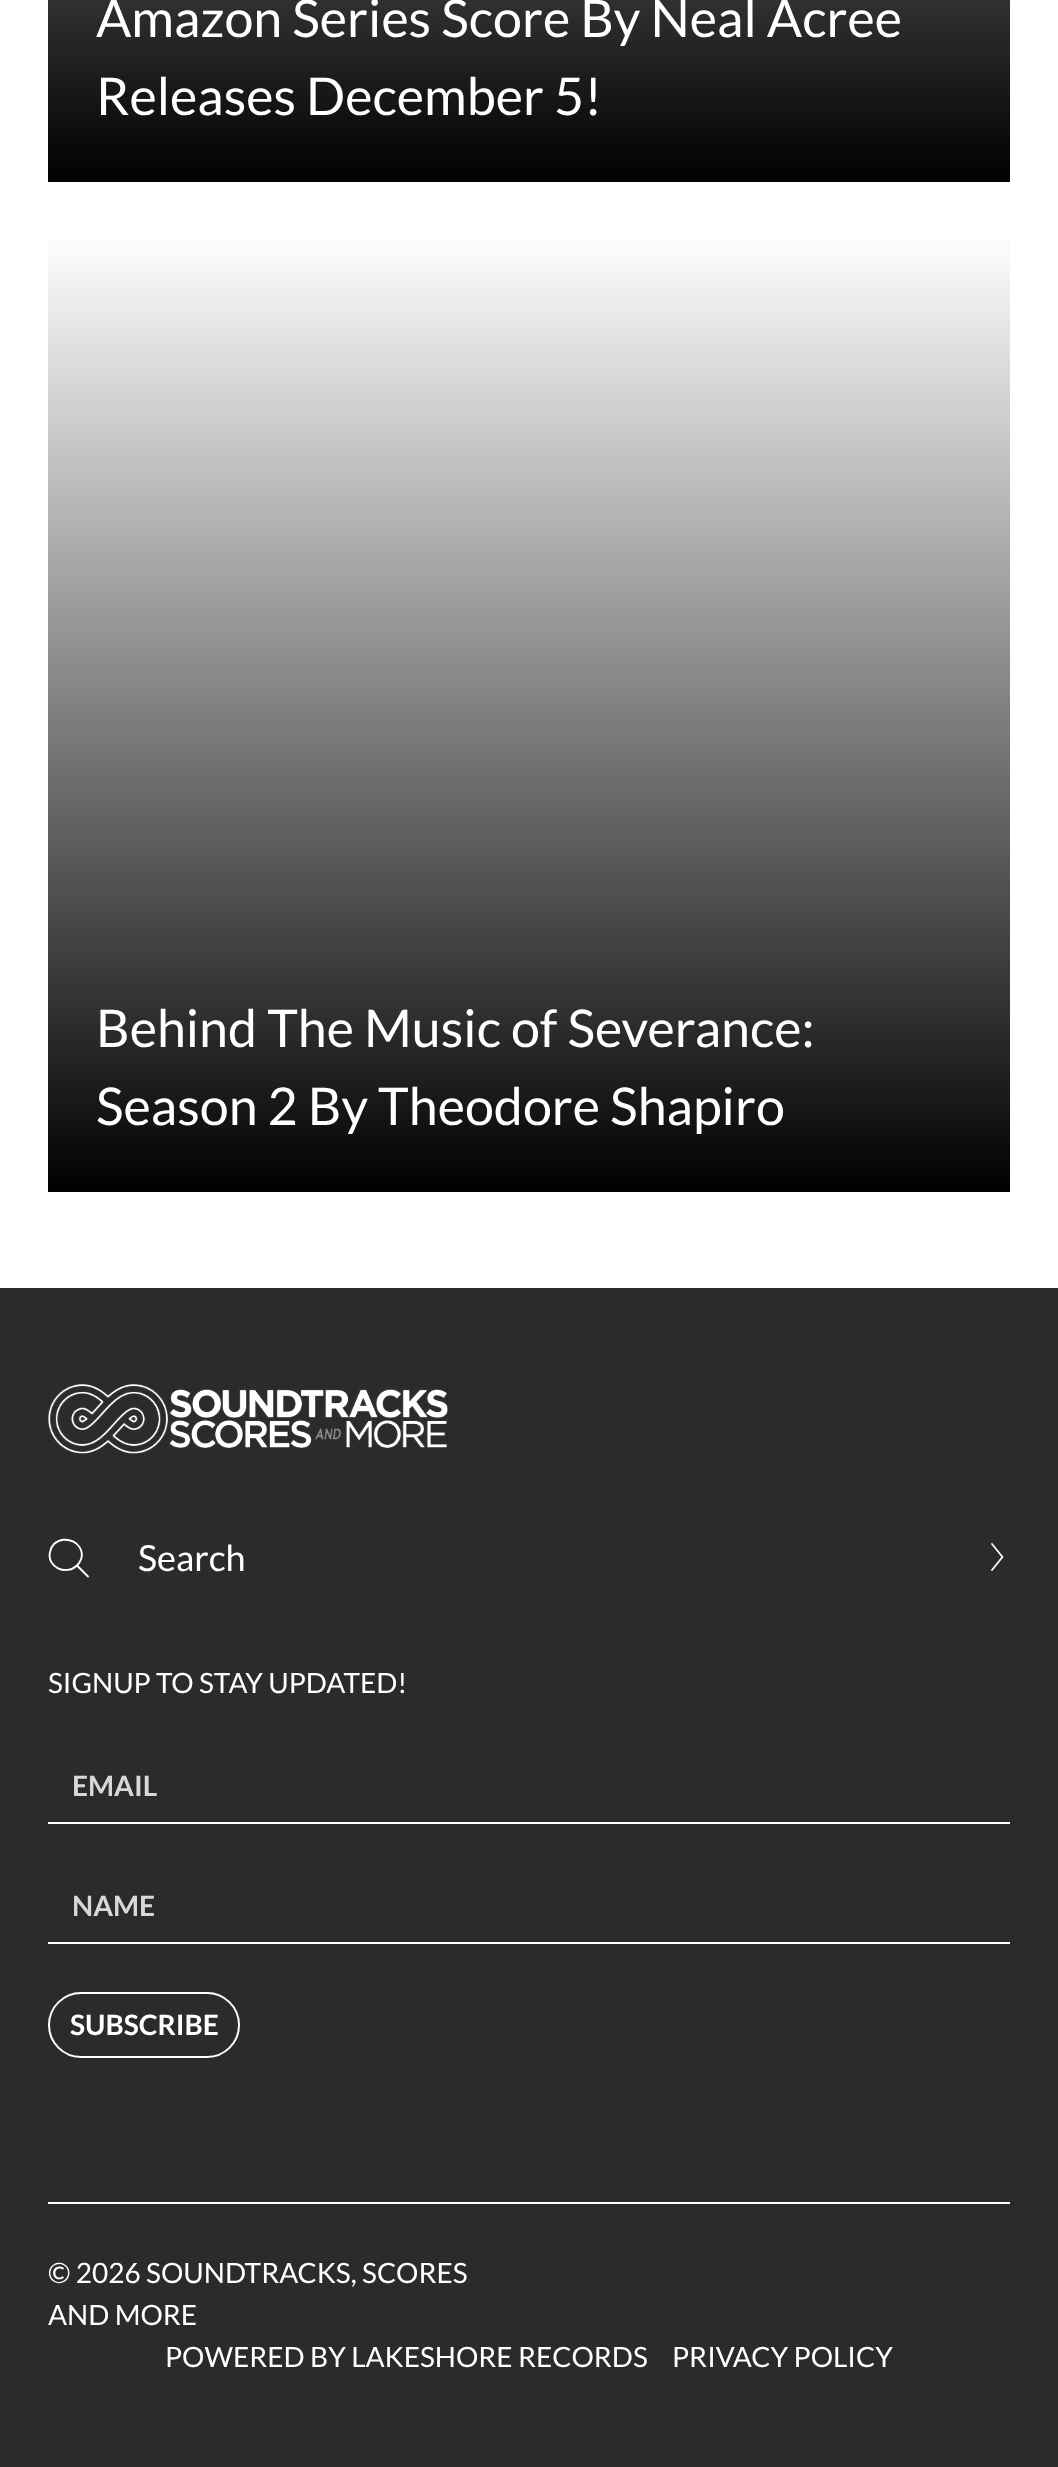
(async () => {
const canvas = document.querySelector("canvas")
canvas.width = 1058
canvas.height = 2467
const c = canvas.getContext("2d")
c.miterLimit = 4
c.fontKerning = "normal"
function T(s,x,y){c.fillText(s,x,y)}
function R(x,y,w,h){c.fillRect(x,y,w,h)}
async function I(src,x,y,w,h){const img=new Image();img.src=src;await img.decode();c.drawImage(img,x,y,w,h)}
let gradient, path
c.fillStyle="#fff"
R(0,0,1058,2467)
gradient = c.createLinearGradient(529,-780,529,182)
gradient.addColorStop(0,"#fff")
gradient.addColorStop(1,"#000")
c.fillStyle = gradient
R(48,0,962,182)
c.font="52px Lato"
c.fillStyle="#fff"
T("Amazon Series Score By Neal Acree",96,37)
T("Releases December 5!",96,115)
gradient = c.createLinearGradient(529,230,529,1192)
gradient.addColorStop(0,"#fff")
gradient.addColorStop(1,"#000")
c.fillStyle = gradient
R(48,239,962,953)
c.fillStyle="#fff"
T("Behind The Music of Severance:",96,1047)
T("Season 2 By Theodore Shapiro",96,1125)
c.fillStyle="#2b2b2b"
R(0,1288,1058,1179)
await I("1.png",48,1384,400,70)
path = new Path2D("M88 1576.5l-11-11m0 0c2-2 3.5-4.5 4.5-7.5c3-15.5-16.5-24-27.5-14c-2 2-3.5 5-4 8c-3.5 15 16 24 27 13.5z")
c.strokeStyle="#fff"
c.lineWidth=1.9
c.lineCap="round"
c.lineJoin="round"
c.stroke(path)
c.font="36px Lato"
c.fillStyle="#fff"
T("Search",138,1571)
path = new Path2D("M992 1544l10.5 13l-10.5 13")
c.lineWidth=1.8
c.stroke(path)
c.font="28px Lato"
T("SIGNUP TO STAY UPDATED!",48,1693)
R(48,1822,962,2)
c.font="bold 28px Lato"
c.fillStyle="#d8d8d8"
T("EMAIL",72,1796)
c.fillStyle="#fff"
R(48,1942,962,2)
c.fillStyle="#d8d8d8"
T("NAME",72,1916)
c.beginPath()
c.roundRect(49,1993,190,64,32)
c.lineWidth=2
c.lineJoin="miter"
c.stroke()
c.fillStyle="#fff"
T("SUBSCRIBE",70,2035)
R(48,2202,962,2)
c.font="28px Lato"
T("© 2026 SOUNDTRACKS, SCORES",48,2283)
T("AND MORE",48,2325)
T("POWERED BY LAKESHORE RECORDS",165,2367)
T("PRIVACY POLICY",672,2367)
})()
